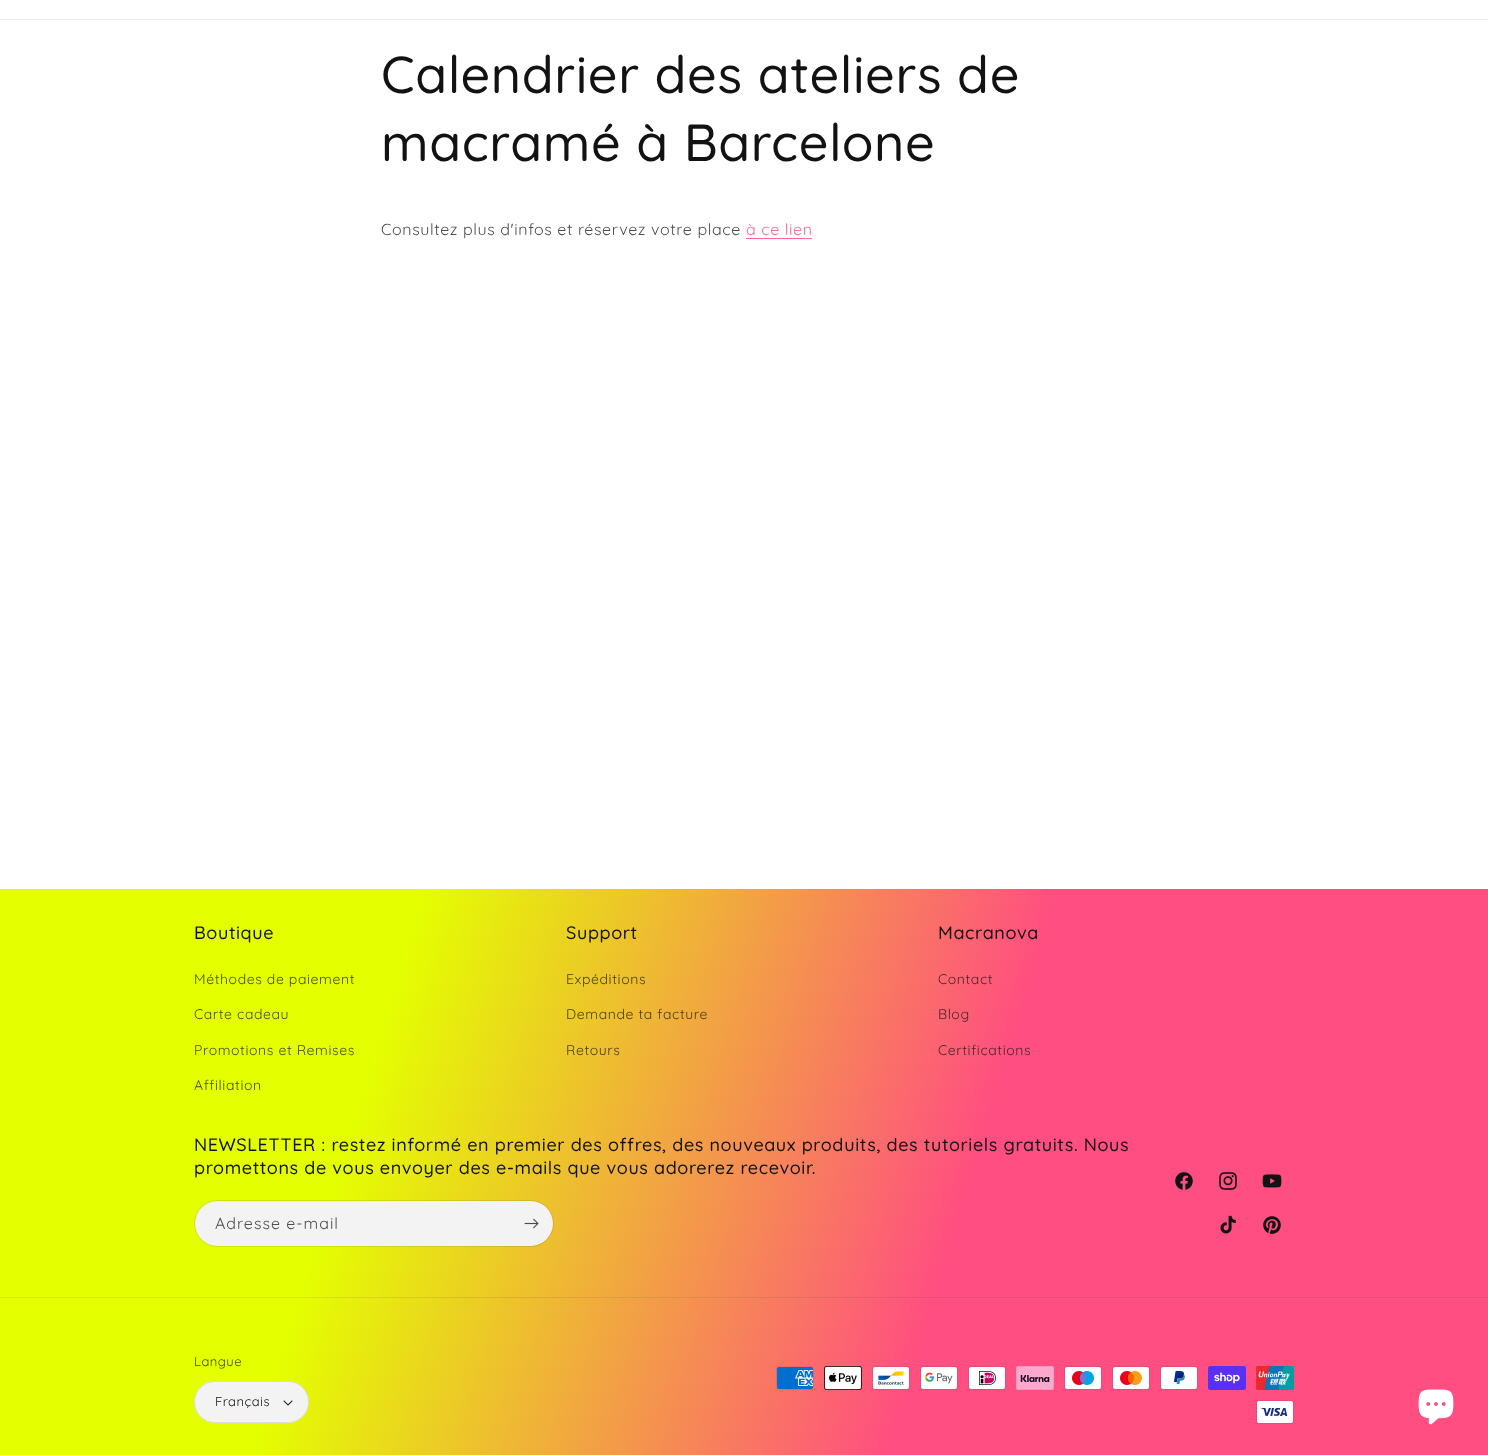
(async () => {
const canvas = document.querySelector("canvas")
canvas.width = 1488
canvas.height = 1455
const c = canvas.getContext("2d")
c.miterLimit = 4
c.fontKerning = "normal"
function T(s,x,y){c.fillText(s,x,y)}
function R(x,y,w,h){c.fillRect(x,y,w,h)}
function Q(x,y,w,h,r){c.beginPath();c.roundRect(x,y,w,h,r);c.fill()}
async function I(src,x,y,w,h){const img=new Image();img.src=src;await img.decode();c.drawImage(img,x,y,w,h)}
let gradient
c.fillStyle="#fff"
R(0,0,1488,1455)
c.fillStyle="#ececec"
R(0,19,1488,1)
c.letterSpacing="0.6px"
c.font="500 52px Quicksand"
c.fillStyle="#121212"
T("Calendrier des ateliers de",381,93)
T("macramé à Barcelone",381,161)
c.font="16px Quicksand"
c.fillStyle="#4d4d4d"
T("Consultez plus d'infos et réservez votre place",381,235)
c.fillStyle="#ff6994"
T("à ce lien",746,235)
R(746,238,66,1)
gradient = c.createLinearGradient(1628,998,-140,457)
gradient.addColorStop(.31,"#ff4e81")
gradient.addColorStop(.64,"#e4ff00")
c.fillStyle = gradient
R(0,889,1488,566)
gradient = c.createLinearGradient(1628,998,-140,457)
gradient.addColorStop(.31,"#ec4978")
gradient.addColorStop(.64,"#d3ec01")
c.fillStyle = gradient
R(0,1297,1488,1)
c.font="500 18px Quicksand"
c.fillStyle="#121212"
T("Boutique",194,939)
c.font="14px Quicksand"
c.fillStyle="#474d0e"
T("Méthodes de paiement",194,984)
T("Carte cadeau",194,1019)
T("Promotions et Remises",194,1055)
T("Affiliation",194,1090)
c.font="500 18px Quicksand"
c.fillStyle="#121212"
T("Support",566,939)
c.font="14px Quicksand"
c.fillStyle="#493f18"
T("Expéditions",566,984)
T("Demande ta facture",566,1019)
T("Retours",566,1055)
c.font="500 18px Quicksand"
c.fillStyle="#121212"
T("Macranova",938,939)
c.font="14px Quicksand"
c.fillStyle="#4d262a"
T("Contact",938,984)
T("Blog",938,1019)
T("Certifications",938,1055)
c.font="500 18px Quicksand"
c.fillStyle="#121212"
T("NEWSLETTER : restez informé en premier des offres, des nouveaux produits, des tutoriels gratuits. Nous",194,1151)
T("promettons de vous envoyer des e-mails que vous adorerez recevoir.",194,1174)
c.fillStyle="#f3f3f3"
Q(195,1201,358,45,22.5)
c.beginPath()
c.roundRect(194.5,1200.5,359,46,23)
c.strokeStyle="#1212121a"
c.stroke()
c.letterSpacing="1px"
c.font="16px Quicksand"
c.fillStyle="#4d4d4d"
T("Adresse e-mail",215,1229)
await I("1.png",524,1218,15,11)
await I("2.png",1175,1172,18,18)
await I("3.png",1219,1172,18,18)
await I("4.png",1262,1174,20,14)
await I("5.png",1220,1215,16,19)
await I("6.png",1263,1216,18,18)
c.letterSpacing="0.5px"
c.font="13px Quicksand"
c.fillStyle="#474d0e"
T("Langue",194,1366)
c.fillStyle="#f3f3f3"
Q(194,1381,115,42,21)
await I("7.png",283,1400,10,6)
c.beginPath()
c.roundRect(194.5,1381.5,114,41,20.5)
c.stroke()
c.fillStyle="#121212"
T("Français",215,1406)
await I("8.png",776,1366,38,24)
await I("9.png",824,1366,38,24)
await I("10.png",872,1366,38,24)
await I("11.png",920,1366,38,24)
await I("12.png",968,1366,38,24)
await I("13.png",1016,1366,38,24)
await I("14.png",1064,1366,38,24)
await I("15.png",1112,1366,38,24)
await I("16.png",1160,1366,38,24)
await I("17.png",1208,1366,38,24)
await I("18.png",1256,1366,38,24)
await I("19.png",1256,1400,38,24)
await I("20.png",1418,1389,36,36)
})()
